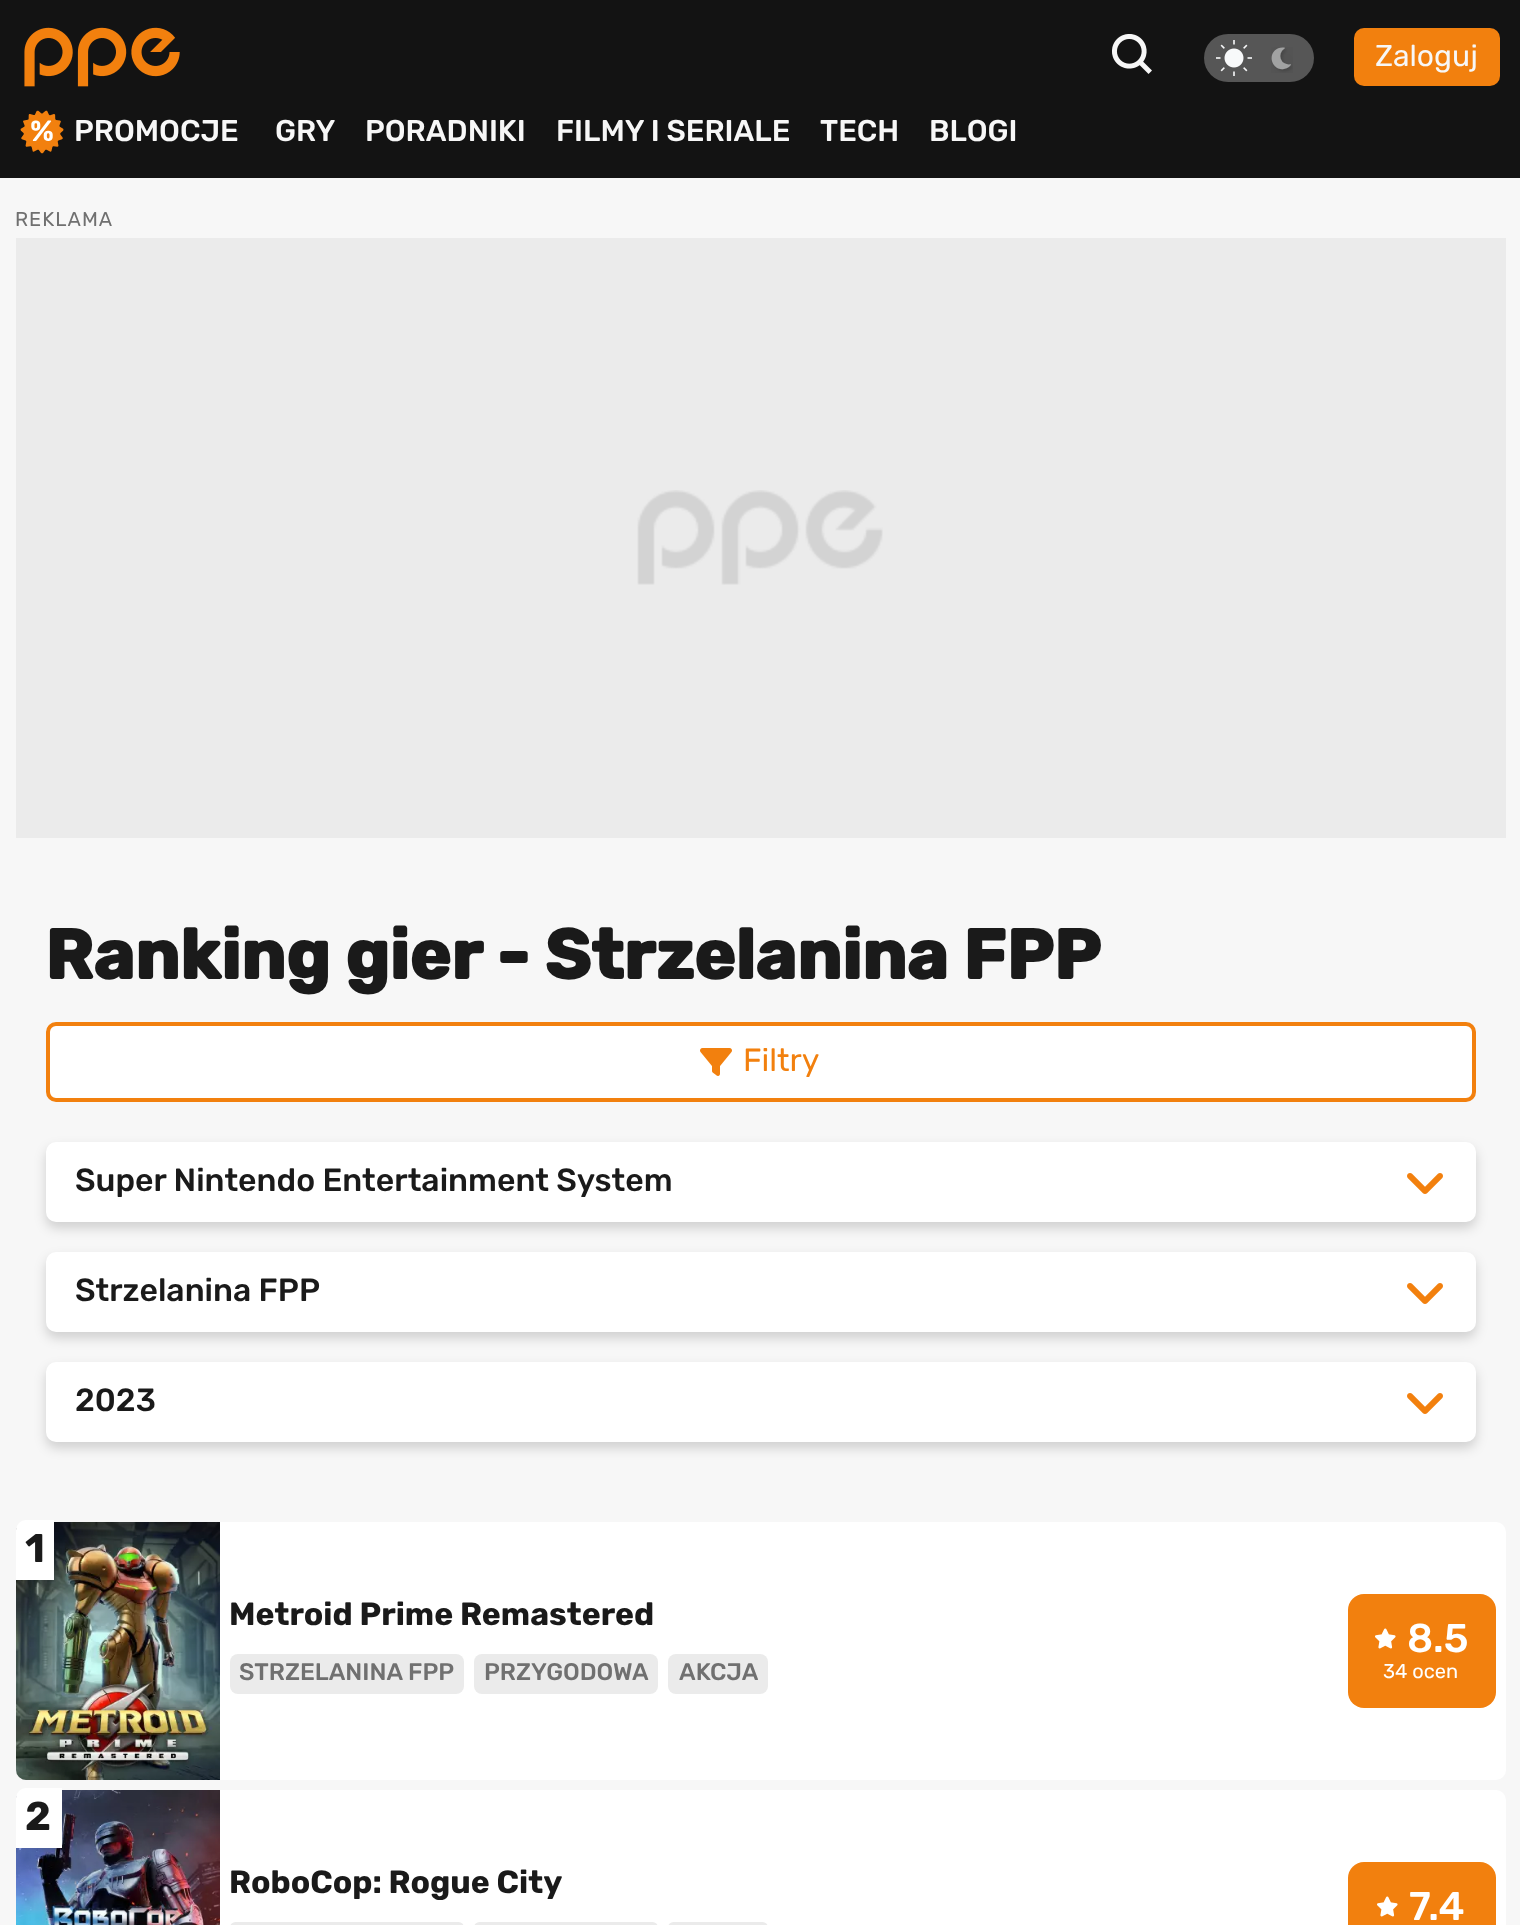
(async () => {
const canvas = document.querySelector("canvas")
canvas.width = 1520
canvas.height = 1925
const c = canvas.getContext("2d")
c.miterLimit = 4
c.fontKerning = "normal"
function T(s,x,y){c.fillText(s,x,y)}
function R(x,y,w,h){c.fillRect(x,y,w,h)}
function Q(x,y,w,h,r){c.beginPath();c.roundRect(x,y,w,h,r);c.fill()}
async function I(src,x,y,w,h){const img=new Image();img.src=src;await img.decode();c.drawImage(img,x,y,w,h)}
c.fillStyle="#f7f7f7"
R(0,0,1520,1925)
c.fillStyle="#131313"
R(0,0,1520,178)
await I("1.png",24,27,156,60)
await I("2.png",1112,34,40,40)
c.fillStyle="#565656"
Q(1204,34,110,48,24)
await I("3.png",1216,40,36,36)
await I("4.png",1271,47,22,26)
c.fillStyle="#f2800e"
Q(1354,28,146,58,10)
c.font="300 30px Rubik"
c.fillStyle="#f7f7f7"
T("Zaloguj",1375,66)
await I("5.png",20,110,44,44)
c.font="300 30px 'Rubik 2'"
T("PROMOCJE",74,141)
T("GRY",275,141)
T("PORADNIKI",365,141)
T("FILMY I SERIALE",556,141)
T("TECH",820,141)
T("BLOGI",929,141)
c.fillStyle="#ebebeb"
R(16,238,1490,600)
await I("6.png",637,490,246,95)
c.letterSpacing="1px"
c.font="300 20px Rubik"
c.fillStyle="#707070"
T("REKLAMA",15,226)
c.letterSpacing="0px"
c.font="bold 70px Rubik"
c.fillStyle="#1a1a1a"
T("Ranking gier - Strzelanina FPP",45,979)
c.fillStyle="#fff"
c.beginPath()
c.roundRect(48,1024,1426,76,8)
c.fill()
c.strokeStyle="#f2800e"
c.lineWidth=4
c.stroke()
await I("7.png",700,1048,32,28)
c.font="300 32px Rubik"
c.fillStyle="#f2800e"
T("Filtry",743,1071)
c.fillStyle="#00000029"
c.filter="blur(6px)"
c.beginPath()
c.roundRect(46,1148,1430,80,10)
c.fill()
c.filter="none"
c.fillStyle="#fff"
Q(46,1142,1430,80,10)
c.font="300 32px 'Rubik 2'"
c.fillStyle="#1a1a1a"
T("Super Nintendo Entertainment System",75,1191)
await I("8.png",1407,1173,36,21)
c.fillStyle="#00000029"
c.filter="blur(6px)"
c.beginPath()
c.roundRect(46,1258,1430,80,10)
c.fill()
c.filter="none"
c.fillStyle="#fff"
Q(46,1252,1430,80,10)
c.fillStyle="#1a1a1a"
T("Strzelanina FPP",75,1301)
await I("8.png",1407,1283,36,21)
c.fillStyle="#00000029"
c.filter="blur(6px)"
c.beginPath()
c.roundRect(46,1368,1430,80,10)
c.fill()
c.filter="none"
c.fillStyle="#fff"
Q(46,1362,1430,80,10)
c.fillStyle="#1a1a1a"
T("2023",75,1411)
await I("8.png",1407,1393,36,21)
c.fillStyle="#fff"
Q(16,1522,1490,258,10)
await I("9.png",16,1522,204,258)
c.beginPath()
c.roundRect(16,1520,38,60,[10,0,0,0])
c.fill()
c.font="300 40px 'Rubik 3'"
c.fillStyle="#1a1a1a"
T("1",25,1562)
c.font="300 32px 'Rubik 3'"
T("Metroid Prime Remastered",229,1625)
c.fillStyle="#ebebeb"
Q(230,1654,234,40,8)
c.font="300 24px 'Rubik 2'"
c.fillStyle="#707070"
T("STRZELANINA FPP",239,1680)
c.fillStyle="#ebebeb"
Q(474,1654,184,40,8)
c.fillStyle="#707070"
T("PRZYGODOWA",484,1680)
c.fillStyle="#ebebeb"
Q(668,1654,100,40,8)
c.fillStyle="#707070"
T("AKCJA",679,1680)
c.fillStyle="#f2800e"
Q(1348,1594,148,114,16)
await I("10.png",1375,1628,21,21)
c.font="300 40px 'Rubik 2'"
c.fillStyle="#fff"
T("8.5",1407,1652)
c.font="300 20px Rubik"
T("34 ocen",1383,1678)
Q(16,1790,1490,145,10)
await I("11.png",16,1790,204,135)
c.beginPath()
c.roundRect(16,1788,46,60,[10,0,0,0])
c.fill()
c.font="300 40px 'Rubik 3'"
c.fillStyle="#1a1a1a"
T("2",25,1830)
c.font="300 32px 'Rubik 3'"
T("RoboCop: Rogue City",229,1893)
c.fillStyle="#ebebeb"
Q(230,1922,234,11,8)
Q(474,1922,184,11,8)
Q(668,1922,100,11,8)
c.fillStyle="#f2800e"
Q(1348,1862,148,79,16)
await I("10.png",1377,1896,21,21)
c.font="300 40px 'Rubik 2'"
c.fillStyle="#fff"
T("7.4",1409,1920)
})()
